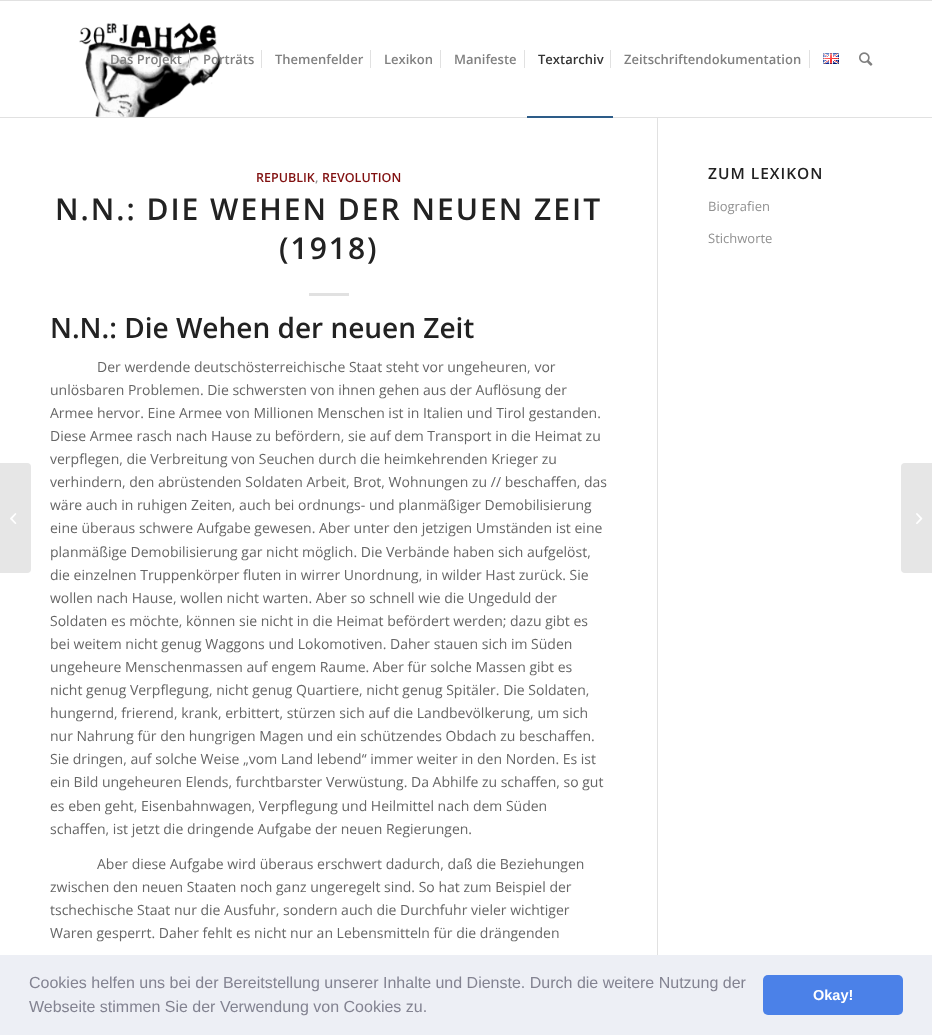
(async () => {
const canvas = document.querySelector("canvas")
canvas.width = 932
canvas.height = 1035
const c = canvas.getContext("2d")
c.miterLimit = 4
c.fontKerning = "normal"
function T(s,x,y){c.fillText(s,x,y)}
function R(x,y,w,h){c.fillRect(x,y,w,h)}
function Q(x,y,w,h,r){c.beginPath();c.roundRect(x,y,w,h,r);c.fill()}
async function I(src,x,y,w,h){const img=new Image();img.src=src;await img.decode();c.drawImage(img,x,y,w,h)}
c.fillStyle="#fff"
R(0,0,932,1035)
c.fillStyle="#e1e1e1"
R(0,0,932,1)
R(657,116,1,839)
R(0,117,932,1)
await I("1.png",79,22,142,95)
c.font="600 13px Open Sans"
c.fillStyle="#808080"
T("Das Projekt",110,64)
T("Porträts",203,64)
c.fillStyle="#e1e1e1"
R(189,50,1,18)
c.fillStyle="#808080"
T("Themenfelder",275,64)
c.fillStyle="#e1e1e1"
R(261,50,1,18)
c.fillStyle="#808080"
T("Lexikon",384,64)
c.fillStyle="#e1e1e1"
R(370,50,1,18)
c.fillStyle="#808080"
T("Manifeste",454,64)
c.fillStyle="#e1e1e1"
R(440,50,1,18)
c.fillStyle="#333"
T("Textarchiv",538,64)
c.fillStyle="#e1e1e1"
R(524,50,1,18)
c.fillStyle="#2d5c88"
R(527,116,86,2)
c.fillStyle="#808080"
T("Zeitschriftendokumentation",624,64)
c.fillStyle="#e1e1e1"
R(610,50,1,18)
R(809,50,1,18)
await I("2.png",823,53,16,11)
await I("3.png",859,52,14,14)
c.fillStyle="#fff"
R(657,116,1,1)
c.fillStyle="#e6e6e6"
c.beginPath()
c.roundRect(0,463,31,110,[0,4,4,0])
c.fill()
await I("4.png",10,513,7,11)
c.font="600 12.5px Open Sans"
c.fillStyle="#811010"
T("REPUBLIK",256,182)
c.fillStyle="#919191"
T(",",315,182)
c.fillStyle="#811010"
T("REVOLUTION",322,182)
c.letterSpacing="2px"
c.font="600 30px Open Sans"
c.fillStyle="#222"
T("N.N.: DIE WEHEN DER NEUEN ZEIT",55,220)
T("(1918)",279,259)
c.fillStyle="#e1e1e1"
R(309,293,40,3)
c.letterSpacing="0px"
c.font="600 28px Open Sans"
c.fillStyle="#222"
T("N.N.: Die Wehen der neuen Zeit",50,338)
c.font="14px Open Sans"
c.fillStyle="#666"
T("Der werdende deutschösterreichische Staat steht vor ungeheuren, vor",97,372)
T("unlösbaren Problemen. Die schwersten von ihnen gehen aus der Auflösung der",50,395)
T("Armee hervor. Eine Armee von Millionen Menschen ist in Italien und Tirol gestanden.",50,418)
T("Diese Armee rasch nach Hause zu befördern, sie auf dem Transport in die Heimat zu",50,441)
T("verpflegen, die Verbreitung von Seuchen durch die heimkehrenden Krieger zu",50,464)
T("verhindern, den abrüstenden Soldaten Arbeit, Brot, Wohnungen zu // beschaffen, das",50,487)
T("wäre auch in ruhigen Zeiten, auch bei ordnungs- und planmäßiger Demobilisierung",50,510)
T("eine überaus schwere Aufgabe gewesen. Aber unter den jetzigen Umständen ist eine",50,533)
T("planmäßige Demobilisierung gar nicht möglich. Die Verbände haben sich aufgelöst,",50,557)
T("die einzelnen Truppenkörper fluten in wirrer Unordnung, in wilder Hast zurück. Sie",50,580)
T("wollen nach Hause, wollen nicht warten. Aber so schnell wie die Ungeduld der",50,603)
T("Soldaten es möchte, können sie nicht in die Heimat befördert werden; dazu gibt es",50,626)
T("bei weitem nicht genug Waggons und Lokomotiven. Daher stauen sich im Süden",50,649)
T("ungeheure Menschenmassen auf engem Raume. Aber für solche Massen gibt es",50,672)
T("nicht genug Verpflegung, nicht genug Quartiere, nicht genug Spitäler. Die Soldaten,",50,695)
T("hungernd, frierend, krank, erbittert, stürzen sich auf die Landbevölkerung, um sich",50,718)
T("nur Nahrung für den hungrigen Magen und ein schützendes Obdach zu beschaffen.",50,741)
T("Sie dringen, auf solche Weise „vom Land lebend“ immer weiter in den Norden. Es ist",50,764)
T("ein Bild ungeheuren Elends, furchtbarster Verwüstung. Da Abhilfe zu schaffen, so gut",50,787)
T("es eben geht, Eisenbahnwagen, Verpflegung und Heilmittel nach dem Süden",50,811)
T("schaffen, ist jetzt die dringende Aufgabe der neuen Regierungen.",50,834)
T("Aber diese Aufgabe wird überaus erschwert dadurch, daß die Beziehungen",97,869)
T("zwischen den neuen Staaten noch ganz ungeregelt sind. So hat zum Beispiel der",50,892)
T("tschechische Staat nur die Ausfuhr, sondern auch die Durchfuhr vieler wichtiger",50,915)
T("Waren gesperrt. Daher fehlt es nicht nur an Lebensmitteln für die drängenden",50,938)
c.letterSpacing="1px"
c.font="600 15.5px Open Sans"
c.fillStyle="#222"
T("ZUM LEXIKON",708,179)
c.letterSpacing="0px"
c.font="13px Open Sans"
c.fillStyle="#919191"
T("Biografien",708,211)
T("Stichworte",708,243)
c.fillStyle="#e6e6e6"
c.beginPath()
c.roundRect(901,463,31,110,[4,0,0,4])
c.fill()
await I("5.png",916,513,7,11)
c.fillStyle="#edeff5"
R(0,955,932,80)
c.font="16px Liberation Sans"
c.fillStyle="#838391"
T("Cookies helfen uns bei der Bereitstellung unserer Inhalte und Dienste. Durch die weitere Nutzung der",29,988)
T("Webseite stimmen Sie der Verwendung von Cookies zu.",29,1012)
c.fillStyle="#4b81e8"
Q(763,975,140,40,5)
c.font="bold 14.5px Liberation Sans"
c.fillStyle="#fff"
T("Okay!",813,1000)
})()
